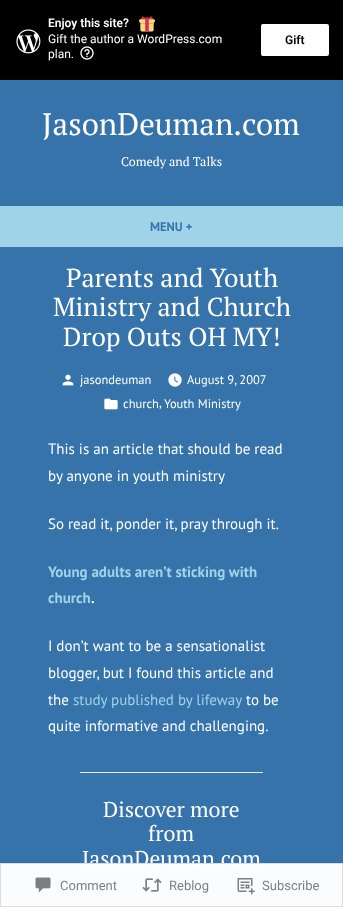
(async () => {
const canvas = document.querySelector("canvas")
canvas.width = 343
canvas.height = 907
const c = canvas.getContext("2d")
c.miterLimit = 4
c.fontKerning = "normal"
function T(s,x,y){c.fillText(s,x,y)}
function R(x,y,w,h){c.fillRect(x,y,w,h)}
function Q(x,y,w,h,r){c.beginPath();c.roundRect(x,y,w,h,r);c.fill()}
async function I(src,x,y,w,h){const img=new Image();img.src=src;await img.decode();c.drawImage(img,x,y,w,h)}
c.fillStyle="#000"
R(0,0,343,907)
await I("1.png",16,29,25,25)
c.font="600 12px Roboto"
c.fillStyle="#fff"
T("Enjoy this site?",48,27)
await I("2.png",139,16,16,16)
c.font="12px Roboto"
T("Gift the author a WordPress.com",48,43)
T("plan.",48,58)
await I("3.png",80,46,14,14)
Q(261,24,68,32,2)
c.font="600 12px Roboto"
c.fillStyle="#000"
T("Gift",285,44)
c.fillStyle="#3673ab"
R(0,80,343,827)
c.font="31px PT Serif"
c.fillStyle="#fff"
T("JasonDeuman.com",42,135)
c.font="12.5px PT Serif"
T("Comedy and Talks",121,166)
c.fillStyle="#9fd3e8"
R(0,206,343,41)
c.font="bold 12.5px PT Sans"
c.fillStyle="#3673ab"
T("MENU +",150,231)
c.font="26px PT Serif"
c.fillStyle="#fff"
T("Parents and Youth",66,287)
T("Ministry and Church",53,316)
T("Drop Outs OH MY!",63,346)
await I("4.png",62,374,12,12)
c.font="12.5px PT Sans"
T("jasondeuman",80,384)
await I("5.png",168,373,14,14)
T("August 9, 2007",187,384)
await I("6.png",104,398,14,12)
T("church",123,408)
T(",",159,407)
T("Youth Ministry",164,408)
c.font="15px PT Sans"
T("This is an article that should be read",48,454)
T("by anyone in youth ministry",48,481)
T("So read it, ponder it, pray through it.",48,529)
c.font="bold 15px PT Sans"
c.fillStyle="#9fd3e8"
T("Young adults aren’t sticking with",48,577)
T("church",48,603)
c.fillStyle="#fff"
T(".",91,603)
c.font="15px PT Sans"
T("I don’t want to be a sensationalist",48,651)
T("blogger, but I found this article and",48,678)
T("the",48,705)
c.fillStyle="#9fd3e8"
T("study published by lifeway",73,705)
c.fillStyle="#fff"
T("to be",246,705)
T("quite informative and challenging.",48,731)
c.fillStyle="#eaeaea"
R(80,772,183,1)
c.font="21.5px PT Serif"
c.fillStyle="#fff"
T("Discover more",103,817)
T("from",148,841)
T("JasonDeuman.com",82,866)
c.fillStyle="#fffffffa"
R(0,863,343,44)
c.strokeStyle="#dcdcdefa"
c.strokeRect(.5,863.5,342,43)
await I("7.png",35,877,16,16)
c.font="13px Roboto"
c.fillStyle="#7b7f84"
T("Comment",60,890)
await I("8.png",142,878,20,14)
T("Reblog",169,890)
await I("9.png",237,878,18,17)
T("Subscribe",262,890)
})()
